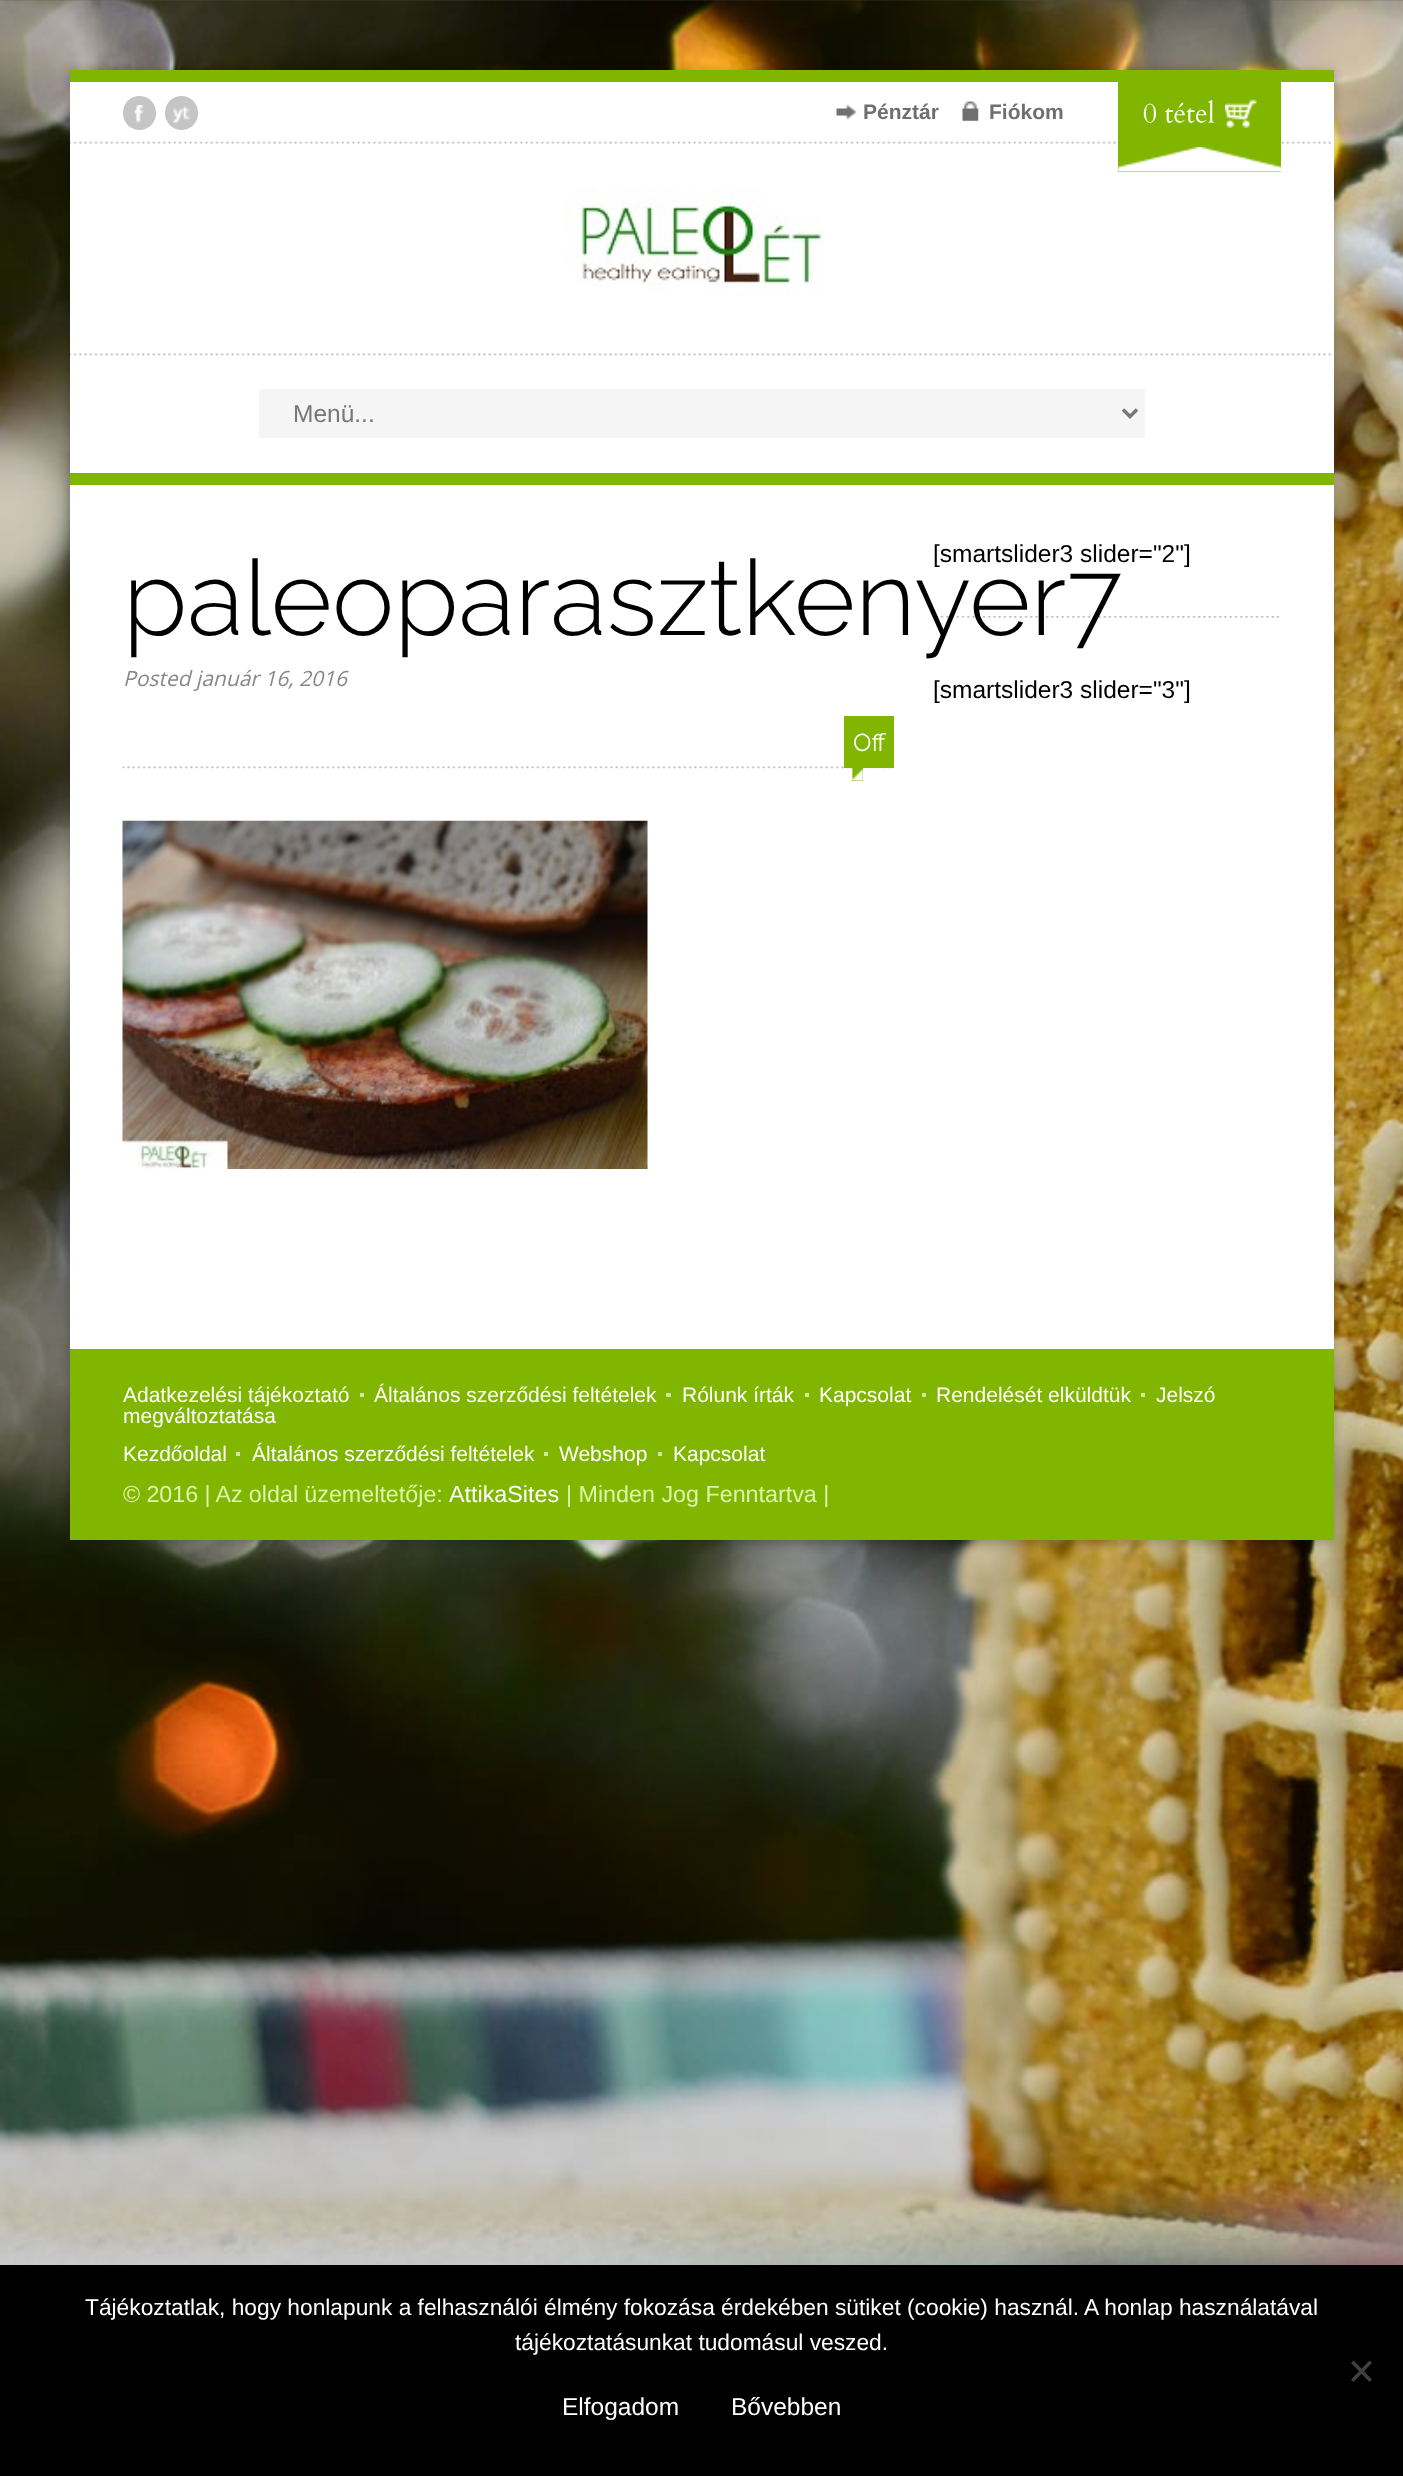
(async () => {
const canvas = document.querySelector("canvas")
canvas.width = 1403
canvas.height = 2476
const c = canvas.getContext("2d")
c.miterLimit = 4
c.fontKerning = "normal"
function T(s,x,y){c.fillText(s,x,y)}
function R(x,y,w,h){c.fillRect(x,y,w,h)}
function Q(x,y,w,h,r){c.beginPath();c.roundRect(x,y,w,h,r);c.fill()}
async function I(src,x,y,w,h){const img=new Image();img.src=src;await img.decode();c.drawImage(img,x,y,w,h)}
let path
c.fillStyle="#fff"
R(0,0,1403,2476)
await I("1.png",0,0,1403,2265)
c.fillStyle="#00000033"
c.filter="blur(5px)"
c.beginPath()
c.rect(68,70,1267,1474)
c.fill()
c.filter="none"
c.fillStyle="#fff"
R(70,82,1264,1267)
c.fillStyle="#80b600"
R(70,70,1264,12)
await I("2.png",70,141,1261,3)
c.fillStyle="#c5c5c5"
Q(123,96,33,34,16.5)
await I("3.png",134,105,10,18)
Q(165,96,33,34,16.5)
await I("4.png",173,106,17,17)
await I("5.png",836,104,21,16)
c.font="bold 21px Liberation Sans"
c.fillStyle="#6f6f6f"
T("Pénztár",863,119)
await I("6.png",962,101,17,20)
T("Fiókom",989,119)
c.fillStyle="#80b600"
R(1118,82,163,90)
await I("7.png",1118,147,163,25)
await I("8.png",1225,99,32,29)
await I("9.png",1143,100,72,23)
await I("10.png",566,187,260,109)
await I("11.png",70,353,1261,3)
R(70,473,1264,12)
c.fillStyle="#f5f5f5"
R(259,389,886,49)
path = new Path2D("M1123 409.5l7 7l7-7")
c.strokeStyle="#777"
c.lineWidth=3.5
c.stroke(path)
c.font="24.5px Liberation Sans"
c.fillStyle="#777"
T("Menü...",293,422)
c.font="300 105px Raleway"
c.fillStyle="#000"
T("paleoparasztkenyer7",123,635)
await I("12.png",937,616,343,2)
c.font="24.5px Liberation Sans"
T("[smartslider3 slider=\"2\"]",933,562)
T("[smartslider3 slider=\"3\"]",933,698)
await I("13.png",122,766,773,3)
c.font="italic 21px Open Sans"
c.fillStyle="#888"
T("Posted január 16, 2016",123,686)
c.fillStyle="#80b600"
R(844,716,50,52)
c.font="24.5px Raleway"
c.fillStyle="#fff"
T("Off",853,751)
c.fillStyle="#80b600"
R(851,768,12,13)
await I("14.png",851,768,12,13)
await I("15.png",122,820,526,349)
R(70,1349,1264,191)
c.font="21px Liberation Sans"
c.fillStyle="#fff"
T("Adatkezelési tájékoztató",123,1402)
c.fillStyle="#d3e5a6"
R(360,1393,4,4)
c.fillStyle="#fff"
T("Általános szerződési feltételek",374,1402)
c.fillStyle="#d3e5a6"
R(666,1393,5,4)
c.fillStyle="#fff"
T("Rólunk írták",682,1402)
c.fillStyle="#d3e5a6"
R(805,1393,4,4)
c.fillStyle="#fff"
T("Kapcsolat",819,1402)
c.fillStyle="#d3e5a6"
R(922,1393,4,4)
c.fillStyle="#fff"
T("Rendelését elküldtük",936,1402)
c.fillStyle="#d3e5a6"
R(1141,1393,4,4)
c.fillStyle="#fff"
T("Jelszó",1156,1402)
T("megváltoztatása",123,1423)
T("Kezdőoldal",123,1461)
c.fillStyle="#d3e5a6"
R(236,1452,4,4)
c.fillStyle="#fff"
T("Általános szerződési feltételek",252,1461)
c.fillStyle="#d3e5a6"
R(544,1452,4,4)
c.fillStyle="#fff"
T("Webshop",559,1461)
c.fillStyle="#d3e5a6"
R(658,1452,4,4)
c.fillStyle="#fff"
T("Kapcsolat",673,1461)
c.wordSpacing="-0.25px"
c.font="23.3px Liberation Sans"
c.fillStyle="#def4aa"
T("© 2016 | Az oldal üzemeltetője:",123,1502)
c.wordSpacing="0px"
c.fillStyle="#fff"
T("AttikaSites",449,1502)
c.fillStyle="#def4aa"
T("| Minden Jog Fenntartva |",566,1502)
c.fillStyle="#000"
R(0,2265,1403,211)
c.font="22.75px Liberation Sans"
c.fillStyle="#fff"
T("Tájékoztatlak, hogy honlapunk a felhasználói élmény fokozása érdekében sütiket (cookie) használ. A honlap használatával",85,2315)
T("tájékoztatásunkat tudomásul veszed.",515,2350)
c.fillStyle="#404040"
path = new Path2D("M1369.5 2360.5l2.5 2.5l-18.5 19l-2.5-2.5z")
c.fill(path)
path = new Path2D("M1351 2363l2.5-2.5l18.5 19l-2.5 2.5z")
c.fill(path)
c.font="24.5px Liberation Sans"
c.fillStyle="#fff"
T("Elfogadom",562,2415)
T("Bővebben",731,2415)
})()
